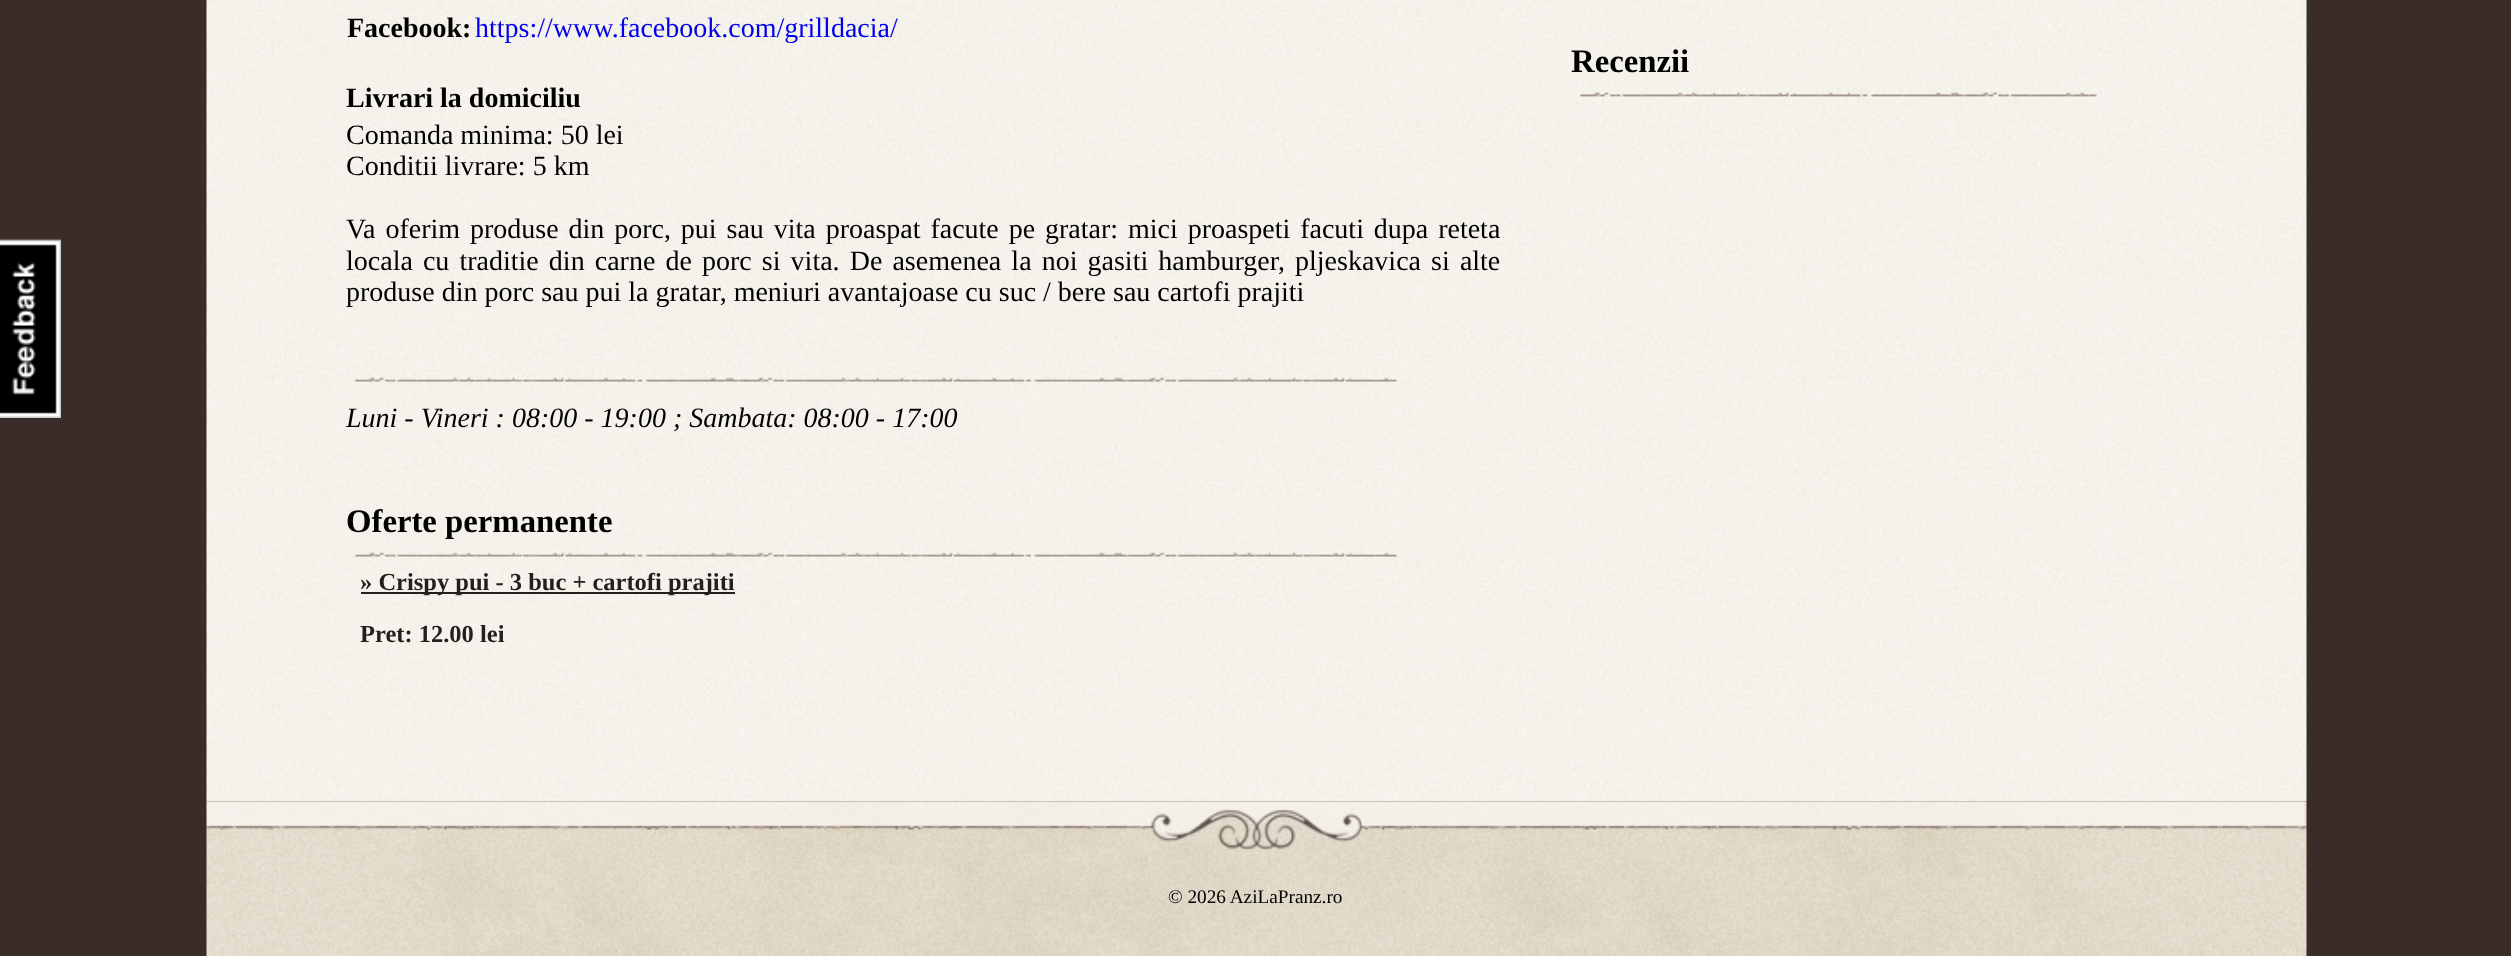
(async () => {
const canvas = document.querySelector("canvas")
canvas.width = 2511
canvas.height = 956
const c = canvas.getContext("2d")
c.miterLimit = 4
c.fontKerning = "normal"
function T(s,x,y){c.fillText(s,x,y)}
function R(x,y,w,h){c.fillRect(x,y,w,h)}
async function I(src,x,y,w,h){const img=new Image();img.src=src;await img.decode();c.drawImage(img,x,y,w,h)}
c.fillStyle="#392c29"
R(0,0,2511,956)
c.fillStyle="#000"
R(0,240,61,174)
await I("1.png",0,239,61,179)
await I("2.png",206,0,2101,802)
c.font="bold 28px Liberation Serif"
T("Facebook:",347,37)
c.font="28px Liberation Serif"
c.fillStyle="#00e"
T("https://www.facebook.com/grilldacia/",475,37)
c.font="bold 28px Liberation Serif"
c.fillStyle="#000"
T("Livrari la domiciliu",346,107)
c.font="28px Liberation Serif"
T("Comanda minima: 50 lei",346,144)
T("Conditii livrare: 5 km",346,175)
c.wordSpacing="2.9px"
T("Va oferim produse din porc, pui sau vita proaspat facute pe gratar: mici proaspeti facuti dupa reteta",346,238)
c.wordSpacing="3.1px"
T("locala cu traditie din carne de porc si vita. De asemenea la noi gasiti hamburger, pljeskavica si alte",346,270)
c.wordSpacing="0px"
T("produse din porc sau pui la gratar, meniuri avantajoase cu suc / bere sau cartofi prajiti",346,301)
await I("3.png",354,377,1043,5)
c.font="italic 28px Liberation Serif"
T("Luni - Vineri : 08:00 - 19:00 ; Sambata: 08:00 - 17:00",346,427)
c.font="bold 32.75px Liberation Serif"
T("Oferte permanente",346,532)
await I("4.png",354,552,1043,5)
c.fillStyle="#261d1c"
R(361,592,374,2)
c.font="bold 24.5px Liberation Serif"
T("» Crispy pui - 3 buc + cartofi prajiti",360,590)
T("Pret: 12.00 lei",360,642)
c.font="bold 32.75px Liberation Serif"
c.fillStyle="#000"
T("Recenzii",1571,72)
await I("5.png",1579,92,518,5)
await I("6.png",206,801,2101,155)
c.font="19.25px Liberation Serif"
T("© 2026 AziLaPranz.ro",1168,903)
})()
